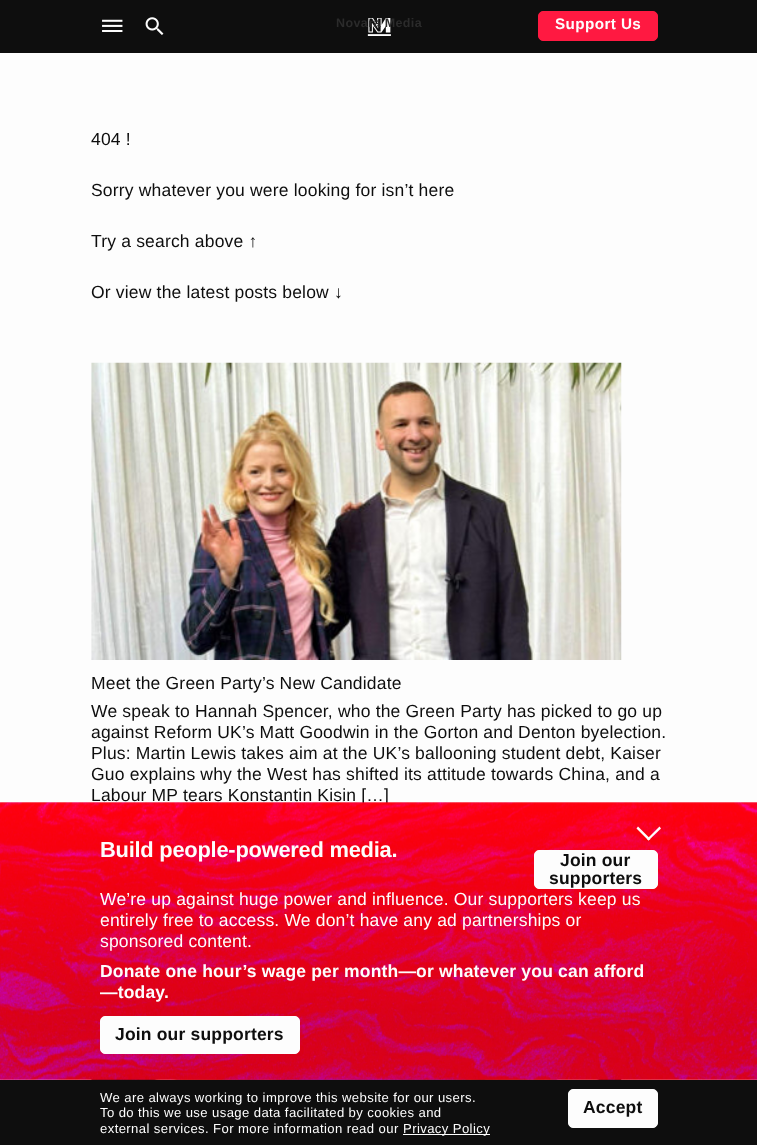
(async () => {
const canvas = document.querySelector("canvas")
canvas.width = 757
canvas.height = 1145
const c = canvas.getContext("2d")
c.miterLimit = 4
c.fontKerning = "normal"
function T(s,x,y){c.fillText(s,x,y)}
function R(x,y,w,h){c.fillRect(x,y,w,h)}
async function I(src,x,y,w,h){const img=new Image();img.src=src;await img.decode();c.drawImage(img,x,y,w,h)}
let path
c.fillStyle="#fdfdfd"
R(0,0,757,1145)
c.fillStyle="#0e0e0e"
R(0,0,757,53)
await I("1.png",102,19,21,13)
await I("2.png",145,17,19,18)
await I("3.png",367,18,24,18)
c.letterSpacing="0.4px"
c.font="bold 12.5px Liberation Sans"
c.fillStyle="#2b2b2b"
T("Novara Media",336,27)
c.fillStyle="#ff1941"
c.beginPath()
c.roundRect(538.5,11.5,119,29,4.5)
c.fill()
c.strokeStyle="#ff1941"
c.stroke()
c.font="bold 15.25px Liberation Sans"
c.fillStyle="#fdfdfd"
T("Support Us",555,29)
c.letterSpacing="0.18px"
c.font="17.5px Liberation Sans"
c.fillStyle="#0e0e0e"
T("404 !",91,145)
T("Sorry whatever you were looking for isn’t here",91,196)
T("Try a search above ↑",91,247)
T("Or view the latest posts below ↓",91,298)
await I("4.png",91,362,531,298)
T("Meet the Green Party’s New Candidate",91,689)
T("We speak to Hannah Spencer, who the Green Party has picked to go up",91,717)
T("against Reform UK’s Matt Goodwin in the Gorton and Denton byelection.",91,738)
T("Plus: Martin Lewis takes aim at the UK’s ballooning student debt, Kaiser",91,759)
T("Guo explains why the West has shifted its attitude towards China, and a",91,780)
T("Labour MP tears Konstantin Kisin […]",91,801)
await I("5.png",91,1079,531,1)
await I("6.png",0,802,757,278)
c.letterSpacing="-0.25px"
c.font="bold 21.9px Liberation Sans"
c.fillStyle="#fdfdfd"
T("Build people-powered media.",100,857)
path = new Path2D("M659.5 826.5l1.5 2l-12.5 12l-1.5-1.5z")
c.fill(path)
path = new Path2D("M638 826.5l12.5 12.5l-2 1.5l-12-12z")
c.fill(path)
c.beginPath()
c.roundRect(534.5,850.5,123,38,4.5)
c.fill()
c.strokeStyle="#fdfdfd"
c.stroke()
c.letterSpacing="0.18px"
c.font="bold 17.5px Liberation Sans"
c.fillStyle="#0e0e0e"
T("Join our",560,866)
T("supporters",549,884)
c.font="17.5px Liberation Sans"
c.fillStyle="#fdfdfd"
T("We’re up against huge power and influence. Our supporters keep us",100,905)
T("entirely free to access. We don’t have any ad partnerships or",100,926)
T("sponsored content.",100,947)
c.font="bold 17.5px Liberation Sans"
T("Donate one hour’s wage per month—or whatever you can afford",100,977)
T("—today.",100,998)
c.beginPath()
c.roundRect(100.5,1016.5,199,37,4.5)
c.fill()
c.stroke()
c.fillStyle="#0e0e0e"
T("Join our supporters",115,1040)
R(0,1080,757,65)
c.letterSpacing="0.4px"
c.font="13.1px Liberation Sans"
c.fillStyle="#fdfdfd"
T("We are always working to improve this website for our users.",100,1102)
T("To do this we use usage data facilitated by cookies and",100,1117)
T("external services. For more information read our",100,1133)
R(403,1134,87,1)
T("Privacy Policy",403,1133)
c.beginPath()
c.roundRect(568.5,1089.5,89,38,4.5)
c.fill()
c.stroke()
c.letterSpacing="0.18px"
c.font="bold 17.5px Liberation Sans"
c.fillStyle="#0e0e0e"
T("Accept",583,1113)
})()
